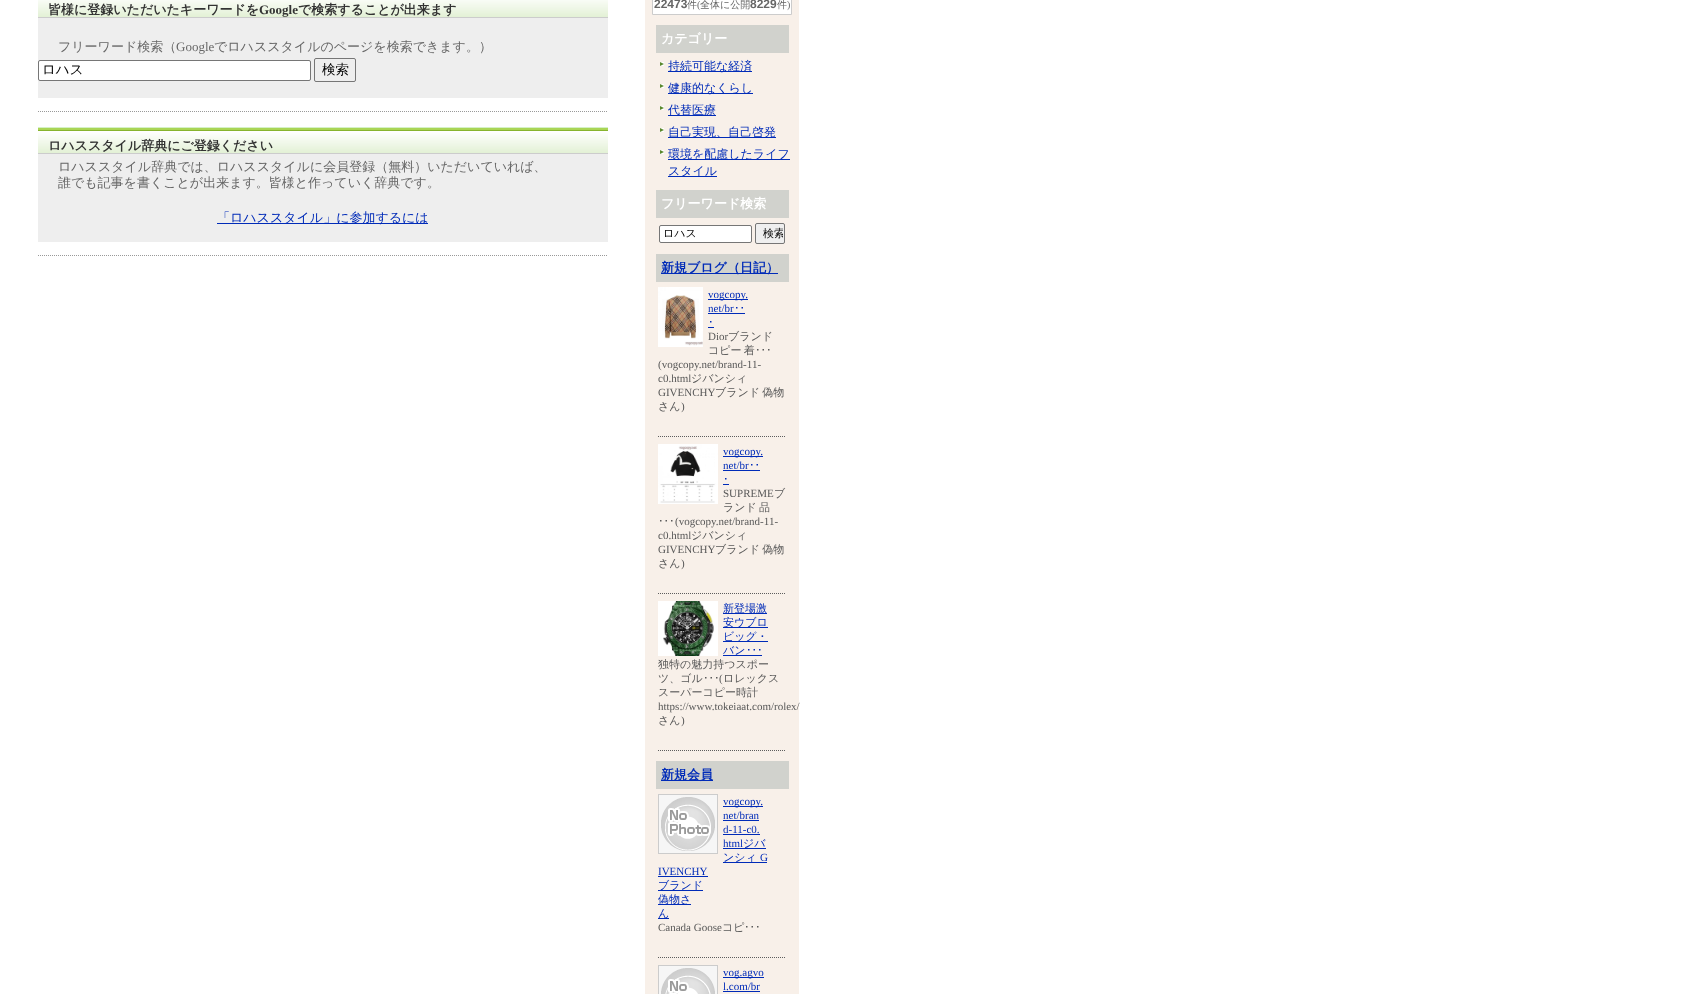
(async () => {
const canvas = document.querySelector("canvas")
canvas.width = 1694
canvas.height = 994
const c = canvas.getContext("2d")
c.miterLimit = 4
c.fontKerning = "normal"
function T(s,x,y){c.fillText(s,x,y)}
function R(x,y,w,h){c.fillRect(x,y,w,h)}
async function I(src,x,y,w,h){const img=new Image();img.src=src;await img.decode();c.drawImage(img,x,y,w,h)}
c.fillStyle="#fff"
R(0,0,1694,994)
c.fillStyle="#f8f0e9"
R(645,0,154,994)
await I("1.png",38,0,570,17)
c.fillStyle="#ccc"
R(38,17,570,1)
c.font="bold 13px WenQuanYi Zen Hei"
c.fillStyle="#333"
T("皆様に登録いただいたキーワードを",48,14)
c.font="bold 13px Liberation Serif"
T("Google",259,14)
c.font="bold 13px WenQuanYi Zen Hei"
T("で検索することが出来ます",298,14)
c.fillStyle="#eee"
R(38,18,570,80)
c.font="500 13px WenQuanYi Zen Hei"
c.fillStyle="#666"
T("フリーワード検索（",58,51)
c.font="13px Liberation Serif"
T("Google",176,51)
c.font="500 13px WenQuanYi Zen Hei"
T("でロハススタイルのページを検索できます。）",214,51)
c.fillStyle="#fff"
c.beginPath()
c.roundRect(38.5,60.5,272,20,1.5)
c.fill()
c.strokeStyle="#767676"
c.stroke()
c.font="500 13.5px WenQuanYi Zen Hei"
c.fillStyle="#000"
T("ロハス",42,74)
c.beginPath()
c.roundRect(314.5,58.5,41,23,1.5)
c.stroke()
T("検索",322,74)
await I("2.png",38,111,569,1)
await I("3.png",38,127,570,26)
c.fillStyle="#ccc"
R(38,153,570,1)
c.font="bold 13px WenQuanYi Zen Hei"
c.fillStyle="#333"
T("ロハススタイル辞典にご登録ください",48,150)
c.fillStyle="#eee"
R(38,154,570,88)
c.font="500 13px WenQuanYi Zen Hei"
c.fillStyle="#666"
T("ロハススタイル辞典では、ロハススタイルに会員登録（無料）いただいていれば、",58,171)
T("誰でも記事を書くことが出来ます。皆様と作っていく辞典です。",58,187)
c.fillStyle="#002bb8"
R(217,223,211,1)
T("「ロハススタイル」に参加するには",217,222)
await I("2.png",38,255,569,1)
c.fillStyle="#fff"
c.beginPath()
c.rect(652.5,-.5,139,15)
c.fill()
c.strokeStyle="#ccc"
c.stroke()
c.font="bold 12px Liberation Sans"
c.fillStyle="#666"
T("22473",654,8)
c.font="500 10px WenQuanYi Zen Hei"
T("件",687,8)
c.font="10px Liberation Serif"
T("(",697,8)
c.font="500 10px WenQuanYi Zen Hei"
T("全体に公開",700,8)
c.font="bold 12px Liberation Sans"
T("8229",750,8)
c.font="500 10px WenQuanYi Zen Hei"
T("件",777,8)
c.font="10px Liberation Serif"
T(")",787,8)
c.fillStyle="#d1d2cd"
R(656,25,133,28)
c.font="bold 13px WenQuanYi Zen Hei"
c.fillStyle="#fff"
T("カテゴリー",661,43)
await I("4.png",660,62,4,4)
c.fillStyle="#002bb8"
R(668,71,84,1)
c.font="500 12px WenQuanYi Zen Hei"
T("持続可能な経済",668,70)
await I("4.png",660,84,4,4)
R(668,93,85,1)
T("健康的なくらし",668,92)
await I("4.png",660,106,4,4)
R(668,115,48,1)
T("代替医療",668,114)
await I("4.png",660,128,4,4)
R(668,137,108,1)
T("自己実現、自己啓発",668,136)
await I("4.png",660,150,4,4)
R(668,159,122,1)
T("環境を配慮したライフ",668,158)
R(668,176,49,1)
T("スタイル",668,175)
c.fillStyle="#d1d2cd"
R(656,190,133,28)
c.font="bold 13px WenQuanYi Zen Hei"
c.fillStyle="#fff"
T("フリーワード検索",661,208)
c.beginPath()
c.roundRect(659.5,225.5,92,17,1.5)
c.fill()
c.strokeStyle="#767676"
c.stroke()
c.font="500 11px WenQuanYi Zen Hei"
c.fillStyle="#000"
T("ロハス",663,237)
c.fillStyle="#efefef"
c.beginPath()
c.roundRect(755.5,223.5,29,20,1.5)
c.fill()
c.stroke()
c.save()
c.beginPath()
c.rect(757,225,26,17)
c.clip()
c.fillStyle="#000"
T("検索",763,237)
c.restore()
c.fillStyle="#d1d2cd"
R(656,254,133,28)
c.fillStyle="#002bb8"
R(661,273,117,1)
c.font="bold 13px WenQuanYi Zen Hei"
T("新規ブログ（日記）",661,272)
await I("5.png",658,287,45,60)
R(708,299,40,1)
c.font="11px Liberation Serif"
T("vogcopy.",708,298)
T("net/br",708,312)
R(708,313,37,1)
c.font="11px IPAPGothic"
T("･･",734,312)
T("･",708,326)
R(708,327,6,1)
c.font="11px Liberation Serif"
c.fillStyle="#585858"
T("Dior",708,340)
c.font="500 11px WenQuanYi Zen Hei"
T("ブランド",728,340)
c.wordSpacing="-1px"
T("コピー 着",708,354)
c.wordSpacing="0px"
c.font="11px IPAPGothic"
T("･･･",755,354)
c.font="11px Liberation Serif"
T("(vogcopy.net/brand-11-",658,368)
T("c0.html",658,382)
c.font="500 11px WenQuanYi Zen Hei"
T("ジバンシィ",691,382)
c.font="11px Liberation Serif"
T("GIVENCHY",658,396)
c.wordSpacing="-1px"
c.font="500 11px WenQuanYi Zen Hei"
T("ブランド 偽物",715,396)
c.wordSpacing="0px"
T("さん",658,410)
c.font="11px Liberation Serif"
T(")",681,410)
await I("6.png",658,436,127,1)
await I("7.png",658,444,60,60)
c.fillStyle="#002bb8"
R(723,456,40,1)
T("vogcopy.",723,455)
T("net/br",723,469)
R(723,470,37,1)
c.font="11px IPAPGothic"
T("･･",749,469)
T("･",723,483)
R(723,484,6,1)
c.font="11px Liberation Serif"
c.fillStyle="#585858"
T("SUPREME",723,497)
c.font="500 11px WenQuanYi Zen Hei"
T("ブ",774,497)
c.wordSpacing="-1px"
T("ランド 品",723,511)
c.wordSpacing="0px"
c.font="11px IPAPGothic"
T("･･･",658,525)
c.font="11px Liberation Serif"
T("(vogcopy.net/brand-11-",675,525)
T("c0.html",658,539)
c.font="500 11px WenQuanYi Zen Hei"
T("ジバンシィ",691,539)
c.font="11px Liberation Serif"
T("GIVENCHY",658,553)
c.wordSpacing="-1px"
c.font="500 11px WenQuanYi Zen Hei"
T("ブランド 偽物",715,553)
c.wordSpacing="0px"
T("さん",658,567)
c.font="11px Liberation Serif"
T(")",681,567)
await I("6.png",658,593,127,1)
await I("8.png",658,601,60,55)
c.fillStyle="#002bb8"
R(723,613,44,1)
c.font="500 11px WenQuanYi Zen Hei"
T("新登場激",723,612)
R(723,627,45,1)
T("安ウブロ",723,626)
R(723,641,45,1)
T("ビッグ・",723,640)
T("バン",723,654)
R(723,655,39,1)
c.font="11px IPAPGothic"
T("･･･",746,654)
c.font="500 11px WenQuanYi Zen Hei"
c.fillStyle="#585858"
T("独特の魅力持つスポー",658,668)
T("ツ、ゴル",658,682)
c.font="11px IPAPGothic"
T("･･･",703,682)
c.font="11px Liberation Serif"
T("(",719,682)
c.font="500 11px WenQuanYi Zen Hei"
T("ロレックス",723,682)
T("スーパーコピー時計",658,696)
c.font="11px Liberation Serif"
T("https://www.tokeiaat.com/rolex/",658,710)
c.font="500 11px WenQuanYi Zen Hei"
T("さん",658,724)
c.font="11px Liberation Serif"
T(")",681,724)
await I("6.png",658,750,127,1)
c.fillStyle="#d1d2cd"
R(656,761,133,28)
c.fillStyle="#002bb8"
R(661,780,52,1)
c.font="bold 13px WenQuanYi Zen Hei"
T("新規会員",661,779)
await I("9.png",658,794,60,60)
R(723,806,40,1)
c.font="11px Liberation Serif"
T("vogcopy.",723,805)
T("net/bran",723,819)
R(723,820,36,1)
T("d-11-c0.",723,833)
R(723,834,37,1)
T("html",723,847)
R(723,848,43,1)
c.font="500 11px WenQuanYi Zen Hei"
T("ジバ",743,847)
R(723,862,44,1)
T("ンシィ",723,861)
c.font="11px Liberation Serif"
T("G",760,861)
T("IVENCHY",658,875)
R(658,876,50,1)
R(658,890,45,1)
c.font="500 11px WenQuanYi Zen Hei"
T("ブランド",658,889)
R(658,904,33,1)
T("偽物さ",658,903)
R(658,918,11,1)
T("ん",658,917)
c.font="11px Liberation Serif"
c.fillStyle="#585858"
T("Canada Goose",658,931)
c.font="500 11px WenQuanYi Zen Hei"
T("コピ",722,931)
c.font="11px IPAPGothic"
T("･･･",744,931)
await I("6.png",658,957,127,1)
await I("10.png",658,965,60,29)
c.fillStyle="#002bb8"
R(723,977,41,1)
c.font="11px Liberation Serif"
T("vog.agvo",723,976)
T("l.com/br",723,990)
R(723,991,37,1)
})()
